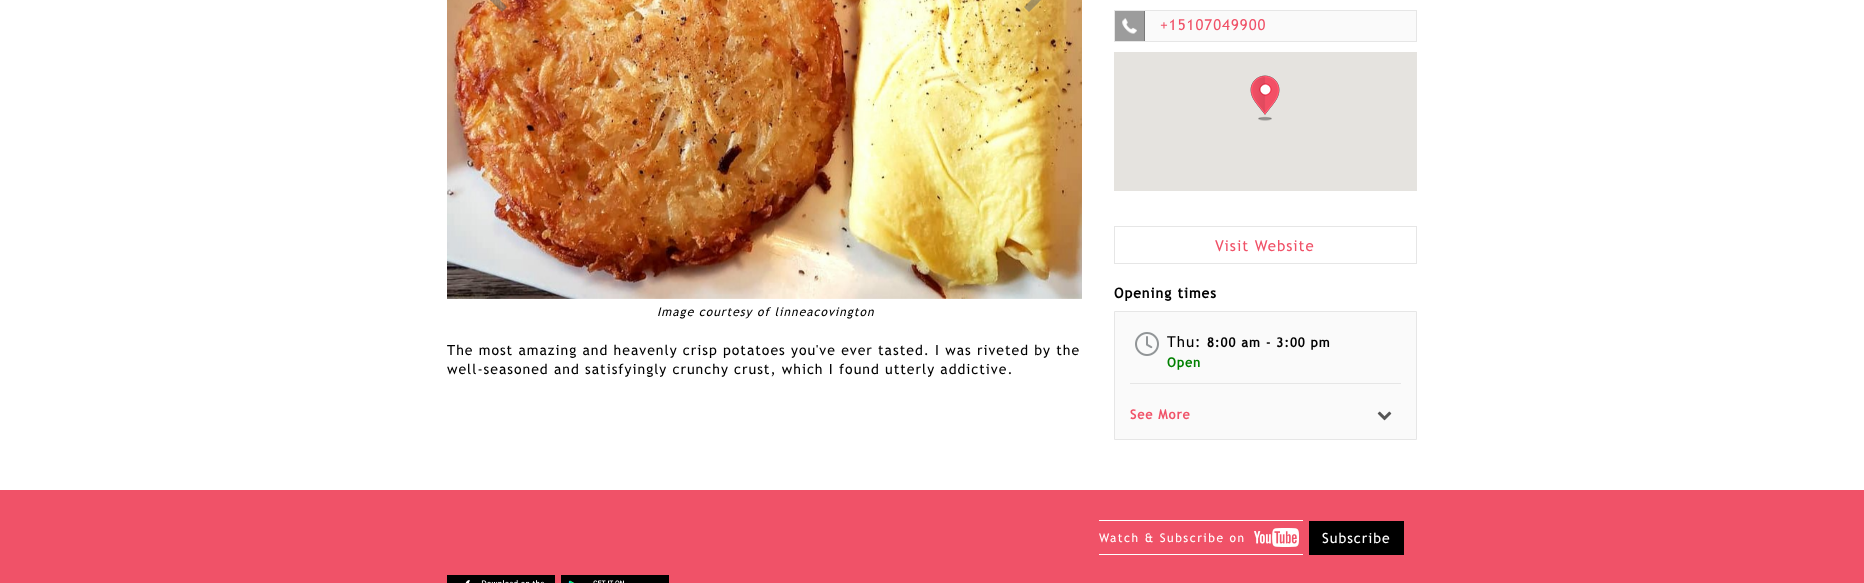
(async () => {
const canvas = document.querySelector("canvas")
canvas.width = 1864
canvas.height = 583
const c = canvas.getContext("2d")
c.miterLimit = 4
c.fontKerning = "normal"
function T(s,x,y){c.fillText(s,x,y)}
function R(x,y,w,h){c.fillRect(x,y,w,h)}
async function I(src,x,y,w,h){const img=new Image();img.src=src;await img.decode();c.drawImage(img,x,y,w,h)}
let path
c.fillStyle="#fff"
R(0,0,1864,583)
await I("1.png",447,0,635,299)
c.fillStyle="#64646480"
path = new Path2D("M507-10.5l-8.5 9l8.5 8.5l-5 5l-13.5-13.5l13.5-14z")
c.fill(path)
path = new Path2D("M1042.5-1.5l-13.5 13.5l-5-5l8.5-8.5l-8.5-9l5-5z")
c.fill(path)
c.letterSpacing="1px"
c.font="italic 12px Trebuchet MS"
c.fillStyle="#010101"
T("Image courtesy of linneacovington",657,316)
c.font="14.05px Trebuchet MS"
T("The most amazing and heavenly crisp potatoes you've ever tasted. I was riveted by the",447,355)
T("well-seasoned and satisfyingly crunchy crust, which I found utterly addictive.",447,374)
c.fillStyle="#fafafa"
R(1145,11,271,30)
c.strokeStyle="#e6e6e6"
c.strokeRect(1114.5,10.5,302,31)
await I("2.png",1115,11,30,30)
c.font="15px Trebuchet MS"
c.fillStyle="#f05268"
T("+15107049900",1160,30)
c.fillStyle="#e5e3df"
R(1114,52,303,139)
await I("3.png",1250,75,30,46)
c.strokeRect(1114.5,226.5,302,37)
c.fillStyle="#f05268"
T("Visit Website",1215,251)
c.font="bold 14px Trebuchet MS"
c.fillStyle="#010101"
T("Opening times",1114,298)
c.fillStyle="#fafafa"
c.beginPath()
c.rect(1114.5,311.5,302,128)
c.fill()
c.stroke()
await I("4.png",1135,332,24,24)
c.fillStyle="#e6e6e6"
R(1130,383,271,1)
c.font="15px Trebuchet MS"
c.fillStyle="#010101"
T("Thu:",1167,347)
c.font="bold 13px Trebuchet MS"
T("8:00 am - 3:00 pm",1207,347)
c.fillStyle="#008000"
T("Open",1167,367)
c.fillStyle="#f05268"
T("See More",1130,419)
await I("5.png",1377,411,15,10)
R(0,490,1864,93)
c.fillStyle="#fff"
R(1099,520,204,1)
R(1099,554,204,1)
c.letterSpacing="1.5px"
c.font="12px Trebuchet MS"
T("Watch & Subscribe on",1099,542)
await I("6.png",1254,528,45,19)
c.fillStyle="#000"
R(1309,521,95,34)
c.letterSpacing="1px"
c.font="14px Trebuchet MS"
c.fillStyle="#fff"
T("Subscribe",1322,543)
await I("7.png",447,575,108,8)
await I("8.png",561,575,108,8)
})()
